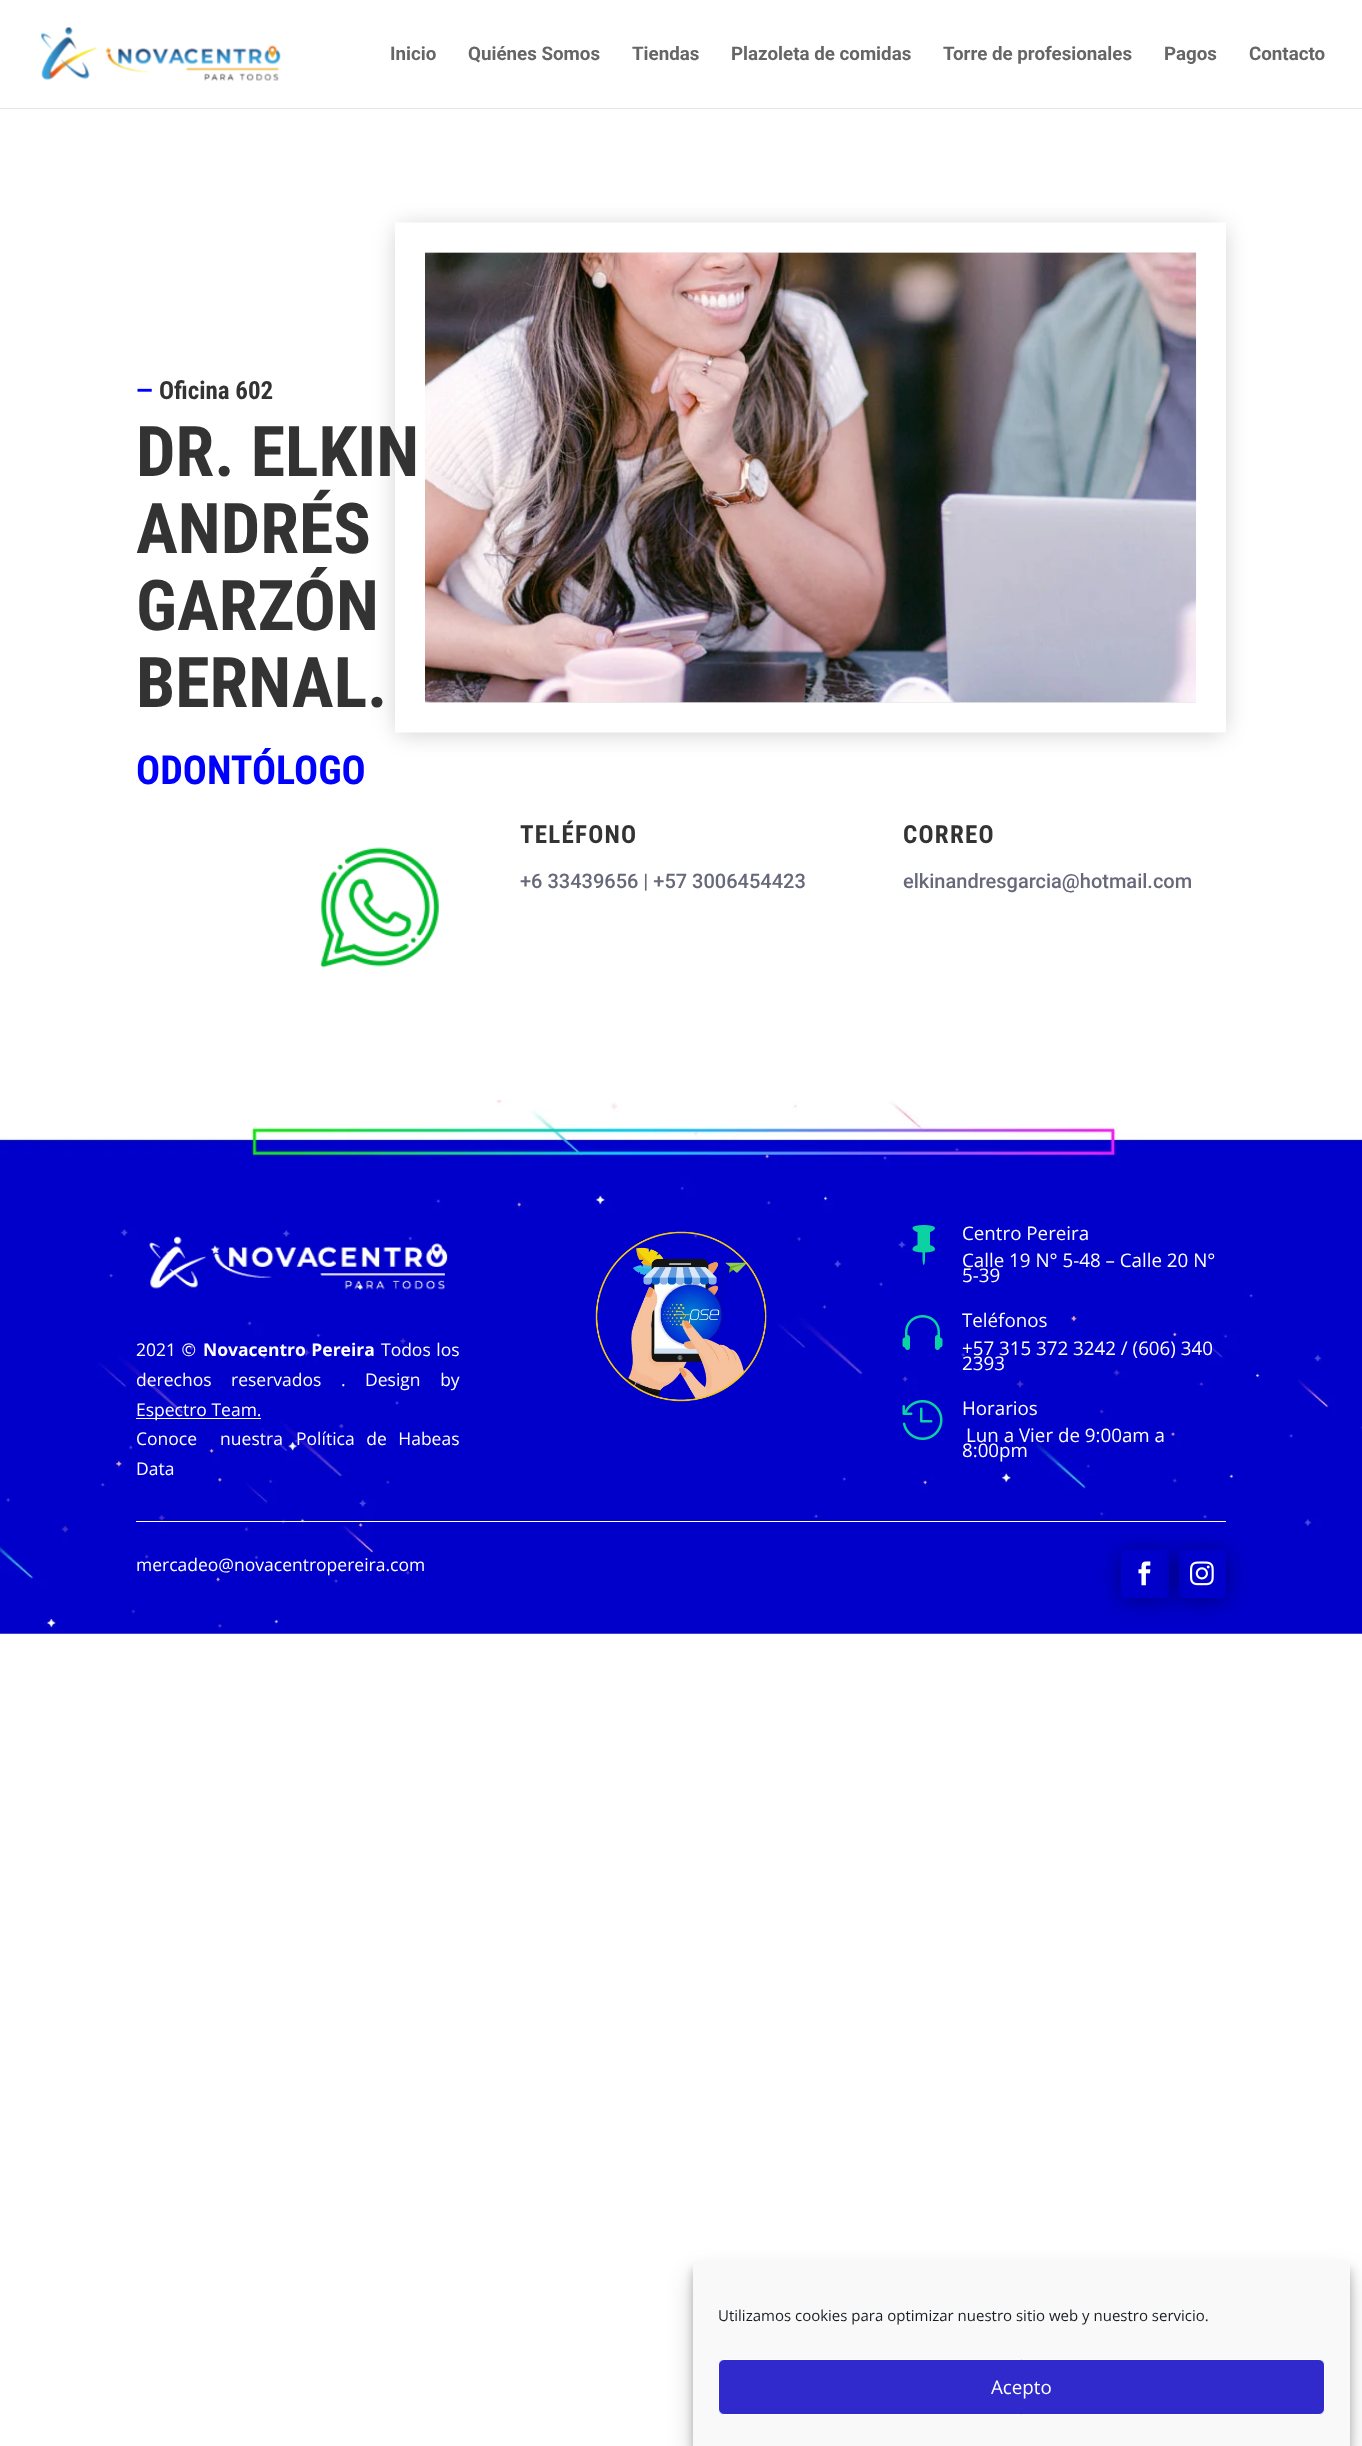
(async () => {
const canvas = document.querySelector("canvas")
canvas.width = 1362
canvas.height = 2446
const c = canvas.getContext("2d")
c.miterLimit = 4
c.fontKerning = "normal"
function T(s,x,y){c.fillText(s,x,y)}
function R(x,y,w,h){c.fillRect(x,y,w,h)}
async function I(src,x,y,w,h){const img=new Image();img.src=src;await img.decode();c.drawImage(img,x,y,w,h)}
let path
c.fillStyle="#fff"
R(0,0,1362,2446)
c.fillStyle="#e6e6e6"
path = new Path2D("M0 108v1h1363v-108h-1v107z")
c.fill(path)
await I("1.png",41,27,240,54)
c.font="bold 18.75px Roboto"
c.fillStyle="#666"
T("Inicio",390,60)
T("Quiénes Somos",468,60)
T("Tiendas",632,60)
T("Plazoleta de comidas",731,60)
T("Torre de profesionales",943,60)
T("Pagos",1164,60)
T("Contacto",1249,60)
c.font="bold 25px Roboto Condensed"
c.fillStyle="#00f"
T("—",136,399)
c.fillStyle="#333"
T("Oficina 602",159,399)
c.fillStyle="#0000002b"
c.filter="blur(11px)"
c.beginPath()
c.roundRect(395,225,831,510,13)
c.fill()
c.filter="none"
path = new Path2D("M410 237.5h801v480h-801z")
c.strokeStyle="#fff"
c.lineWidth=30
c.stroke(path)
c.font="bold 70px Roboto Condensed"
c.fillStyle="#333"
T("DR. ELKIN",136,476)
T("ANDRÉS",136,553)
T("GARZÓN",136,630)
T("BERNAL.",136,707)
c.font="bold 40px Roboto Condensed"
c.fillStyle="#00f"
T("ODONTÓLOGO",136,784)
await I("2.png",320,847,119,121)
await I("3.png",425,252,772,451)
c.letterSpacing="1.25px"
c.font="bold 25px Roboto Condensed"
c.fillStyle="#333"
T("TELÉFONO",520,843)
c.letterSpacing="0px"
c.font="500 20px Roboto"
c.fillStyle="#676879"
T("+6 33439656 | +57 3006454423",520,888)
c.letterSpacing="1.25px"
c.font="bold 25px Roboto Condensed"
c.fillStyle="#333"
T("CORREO",903,843)
c.letterSpacing="0px"
c.font="500 20px Roboto"
c.fillStyle="#676879"
T("elkinandresgarcia@hotmail.com",903,888)
await I("4.png",0,1100,1362,534)
c.fillStyle="#fff"
R(136,1521,1090,1)
await I("5.png",149,1236,299,54)
c.wordSpacing="1px"
c.font="17.5px Open Sans"
T("2021 ©",136,1356)
c.font="bold 17.5px Open Sans"
T("Novacentro Pereira",203,1356)
c.font="17.5px Open Sans"
T("Todos los",381,1356)
c.wordSpacing="15px"
T("derechos reservados . Design by",136,1386)
R(136,1418,125,1)
c.wordSpacing="0px"
T("Espectro Team.",136,1416)
c.wordSpacing="7px"
T("Conoce  nuestra",136,1445)
T("Política de Habeas",296,1445)
c.wordSpacing="0px"
T("Data",136,1475)
await I("6.png",595,1231,172,171)
await I("7.png",912,1225,23,40)
c.font="18.75px Open Sans"
T("Centro Pereira",962,1240)
T("Calle 19 N° 5-48 – Calle 20 N°",962,1267)
T("5-39",962,1282)
await I("8.png",902,1315,41,35)
T("Teléfonos",962,1327)
T("+57 315 372 3242 / (606) 340",962,1355)
T("2393",962,1370)
await I("9.png",902,1400,41,40)
T("Horarios",962,1415)
T("Lun a Vier de 9:00am a",966,1442)
T("8:00pm",962,1457)
c.font="17.5px Open Sans"
T("mercadeo@novacentropereira.com",136,1571)
c.save()
path = new Path2D("M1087 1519h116v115h-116zm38 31h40c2 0 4 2 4 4v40c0 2-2 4-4 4h-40c-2 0-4-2-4-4v-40c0-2 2-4 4-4z")
c.clip(path,"evenodd")
c.fillStyle="#00000061"
c.filter="blur(11px)"
c.beginPath()
c.roundRect(1121,1553,48,47,4)
c.fill()
c.filter="none"
c.restore()
c.save()
path = new Path2D("M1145 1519h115v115h-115zm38 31h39c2 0 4 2 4 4v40c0 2-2 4-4 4h-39c-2 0-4-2-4-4v-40c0-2 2-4 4-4z")
c.clip(path,"evenodd")
c.fillStyle="#00000061"
c.filter="blur(11px)"
c.beginPath()
c.roundRect(1179,1553,47,47,4)
c.fill()
c.filter="none"
c.restore()
await I("10.png",1138,1561,13,25)
await I("11.png",1190,1561,24,25)
c.fillStyle="#0000003b"
c.filter="blur(4px)"
c.beginPath()
c.rect(693,2269,657,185)
c.fill()
c.filter="none"
c.fillStyle="#00000030"
c.filter="blur(12.5px)"
c.beginPath()
c.rect(693,2274,657,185)
c.fill()
c.filter="none"
c.fillStyle="#f9f9f9"
R(693,2261,657,185)
c.font="15px Open Sans"
c.fillStyle="#191e23"
T("Utilizamos cookies para optimizar nuestro sitio web y nuestro servicio.",718,2321)
c.fillStyle="#302acc"
c.beginPath()
c.roundRect(718.5,2359.5,606,55,5.5)
c.fill()
c.lineWidth=1
c.stroke()
c.font="18.75px Open Sans"
c.fillStyle="#fff"
T("Acepto",991,2394)
})()
